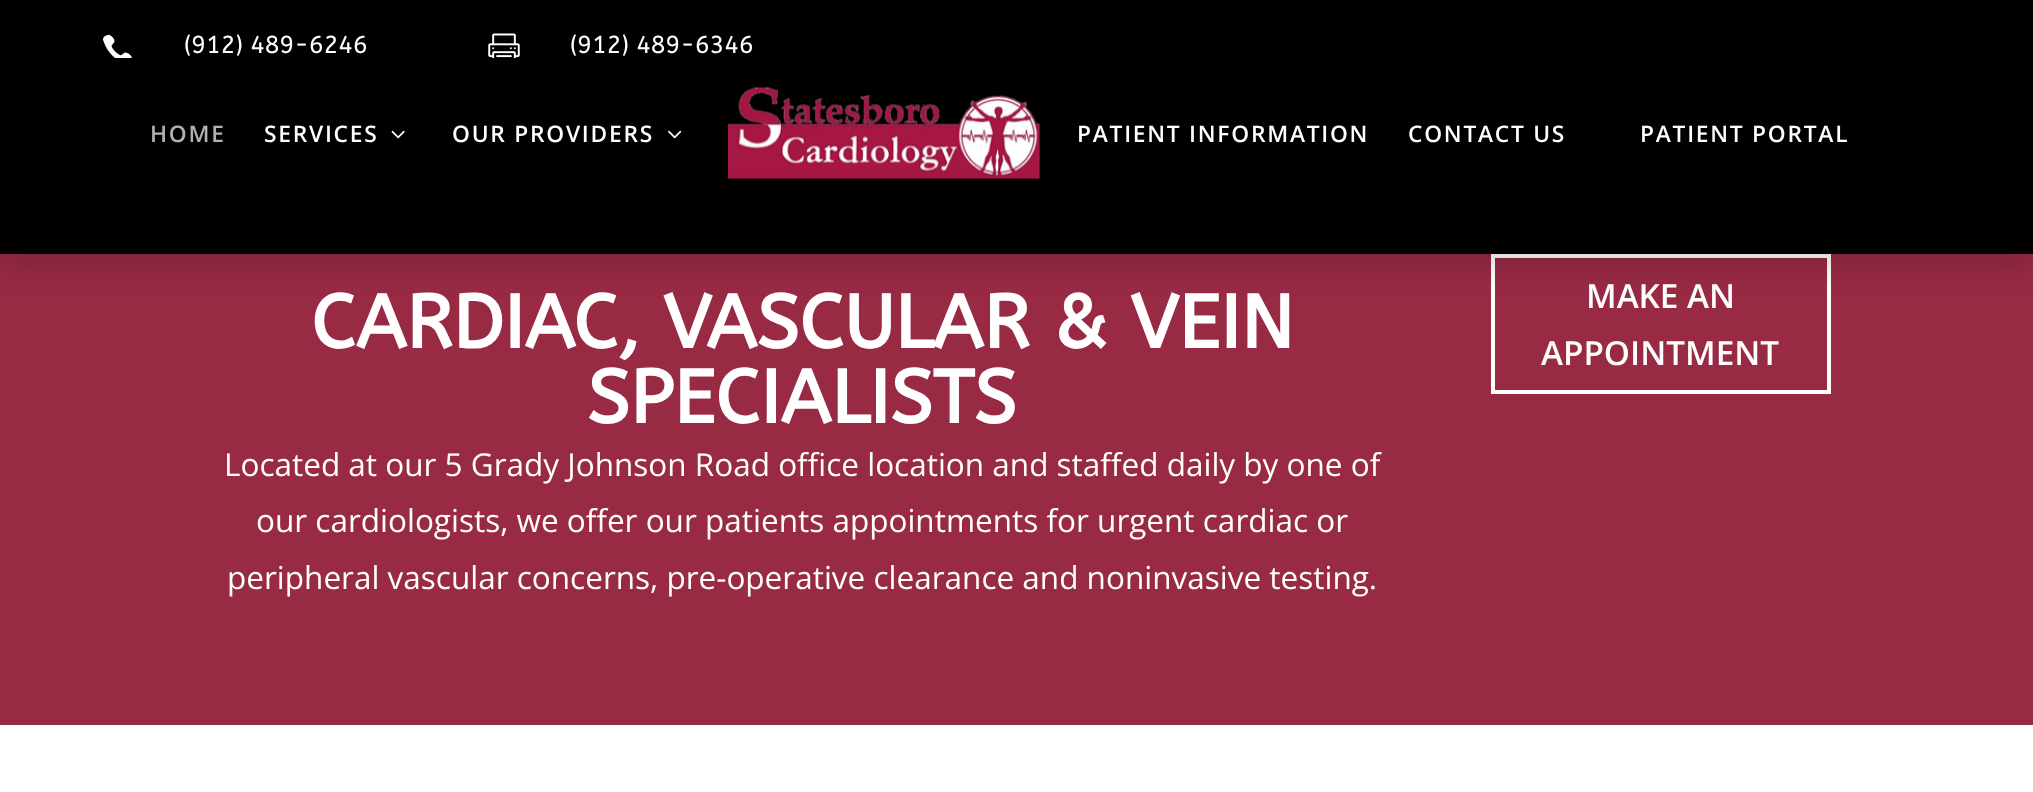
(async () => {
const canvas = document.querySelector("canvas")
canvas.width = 2033
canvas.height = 792
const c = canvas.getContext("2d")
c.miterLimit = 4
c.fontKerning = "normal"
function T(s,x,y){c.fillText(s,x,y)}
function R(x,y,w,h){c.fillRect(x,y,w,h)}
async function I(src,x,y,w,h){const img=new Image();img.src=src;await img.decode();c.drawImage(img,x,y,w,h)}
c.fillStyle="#fff"
R(0,0,2033,792)
c.fillStyle="#982a44"
R(0,254,2033,471)
c.strokeStyle="#fff"
c.lineWidth=4
c.strokeRect(1493,256,336,136)
c.fillStyle="#0000002e"
c.filter="blur(16px)"
c.beginPath()
c.rect(0,11,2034,253)
c.fill()
c.filter="none"
c.fillStyle="#000"
R(0,0,2033,254)
await I("1.png",102,34,30,24)
c.font="24.5px ABeeZee"
c.fillStyle="#fff"
T("(912) 489-6246",184,53)
await I("2.png",488,33,32,25)
T("(912) 489-6346",570,53)
c.letterSpacing="1.75px"
c.font="600 22.75px Open Sans"
c.fillStyle="#b2b2b2"
T("HOME",150,142)
c.fillStyle="#fff"
T("SERVICES",264,142)
await I("3.png",391,130,14,9)
T("OUR PROVIDERS",452,142)
await I("4.png",668,130,14,9)
await I("5.png",728,87,312,92)
T("PATIENT INFORMATION",1077,142)
T("CONTACT US",1408,142)
T("PATIENT PORTAL",1640,142)
c.letterSpacing="0px"
c.font="bold 75.25px ABeeZee"
T("CARDIAC, VASCULAR & VEIN",311,348)
T("SPECIALISTS",587,423)
c.font="31.5px Open Sans"
T("Located at our 5 Grady Johnson Road office location and staffed daily by one of",224,476)
T("our cardiologists, we offer our patients appointments for urgent cardiac or",256,532)
T("peripheral vascular concerns, pre-operative clearance and noninvasive testing.",227,589)
c.font="600 33.25px Open Sans"
T("MAKE AN",1586,308)
T("APPOINTMENT",1541,365)
})()
